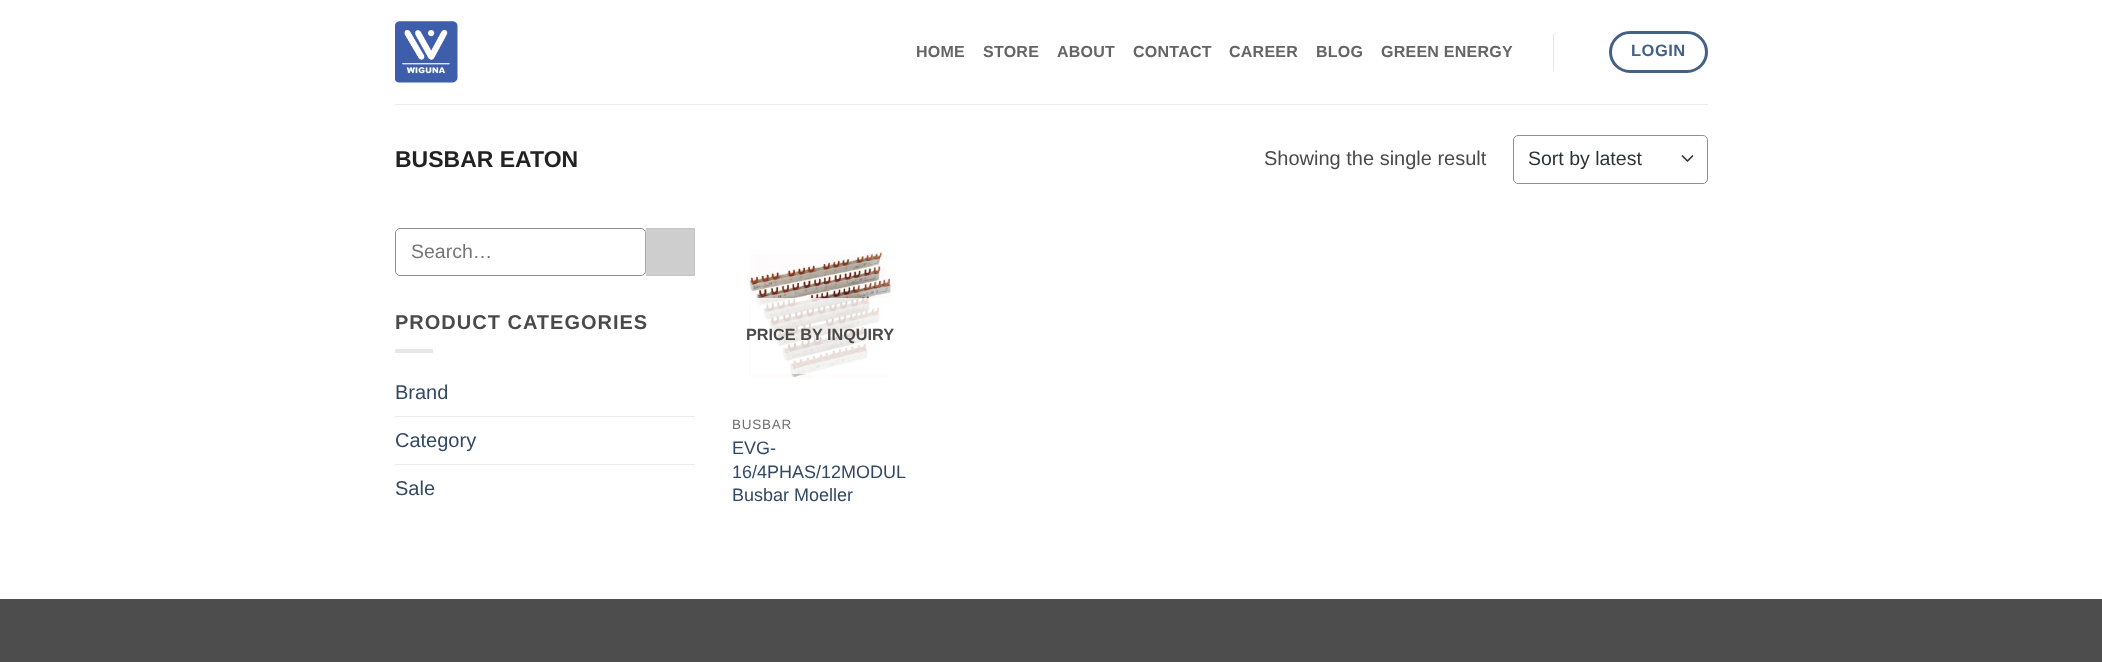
(async () => {
const canvas = document.querySelector("canvas")
canvas.width = 2102
canvas.height = 662
const c = canvas.getContext("2d")
c.miterLimit = 4
c.fontKerning = "normal"
function T(s,x,y){c.fillText(s,x,y)}
function R(x,y,w,h){c.fillRect(x,y,w,h)}
async function I(src,x,y,w,h){const img=new Image();img.src=src;await img.decode();c.drawImage(img,x,y,w,h)}
let path
c.fillStyle="#4d4d4d"
R(0,0,2102,662)
c.fillStyle="#fff"
R(0,0,2102,599)
await I("1.png",395,21,63,62)
c.letterSpacing="0.25px"
c.font="bold 16px Liberation Sans"
c.fillStyle="#656565"
T("HOME",916,57)
T("STORE",983,57)
T("ABOUT",1057,57)
T("CONTACT",1133,57)
T("CAREER",1229,57)
T("BLOG",1316,57)
T("GREEN ENERGY",1381,57)
c.fillStyle="#e6e6e6"
R(1553,34,1,37)
c.beginPath()
c.roundRect(1610.5,32.5,96,39,19.5)
c.strokeStyle="#446084"
c.lineWidth=3
c.stroke()
c.letterSpacing="0.5px"
c.font="bold 16.5px Liberation Sans"
c.fillStyle="#446084"
T("LOGIN",1631,56)
c.fillStyle="#ededed"
R(395,104,1313,1)
c.letterSpacing="0px"
c.font="bold 23px Liberation Sans"
c.fillStyle="#222"
T("BUSBAR EATON",395,167)
c.font="20px Liberation Sans"
c.fillStyle="#4a4a4a"
T("Showing the single result",1264,165)
path = new Path2D("M1682.5 156l5 5l5-5")
c.strokeStyle="#333"
c.lineWidth=1.7
c.lineCap="round"
c.lineJoin="round"
c.stroke(path)
c.beginPath()
c.roundRect(1513.5,135.5,194,48,4.5)
c.strokeStyle="#8c8f94"
c.lineWidth=1
c.lineJoin="miter"
c.stroke()
c.font="19.5px Liberation Sans"
c.fillStyle="#2c3338"
T("Sort by latest",1528,165)
c.beginPath()
c.roundRect(395.5,228.5,250,47,4.5)
c.stroke()
c.fillStyle="#757575"
T("Search…",411,258)
c.fillStyle="#cecece"
c.beginPath()
c.rect(646.5,228.5,48,47)
c.fill()
c.strokeStyle="#c4c4c4"
c.stroke()
c.letterSpacing="1px"
c.font="bold 20px Liberation Sans"
c.fillStyle="#4a4a4a"
T("PRODUCT CATEGORIES",395,329)
c.fillStyle="#e6e6e6"
R(395,349,38,4)
c.letterSpacing="0px"
c.font="20px Liberation Sans"
c.fillStyle="#334862"
T("Brand",395,399)
c.fillStyle="#ececec"
R(395,416,300,1)
c.fillStyle="#334862"
T("Category",395,447)
c.fillStyle="#ececec"
R(395,464,300,1)
c.fillStyle="#334862"
T("Sale",395,495)
await I("2.png",749,249,142,129)
c.fillStyle="#ffffffcf"
R(751,298,139,76)
c.font="bold 16.25px Liberation Sans"
c.fillStyle="#4a4a4a"
T("PRICE BY INQUIRY",746,340)
c.letterSpacing="0.75px"
c.font="13.5px Liberation Sans"
c.fillStyle="#6e6e6e"
T("BUSBAR",732,429)
c.letterSpacing="0px"
c.font="18px Liberation Sans"
c.fillStyle="#334862"
T("EVG-",732,454)
T("16/4PHAS/12MODUL",732,478)
T("Busbar Moeller",732,501)
})()
